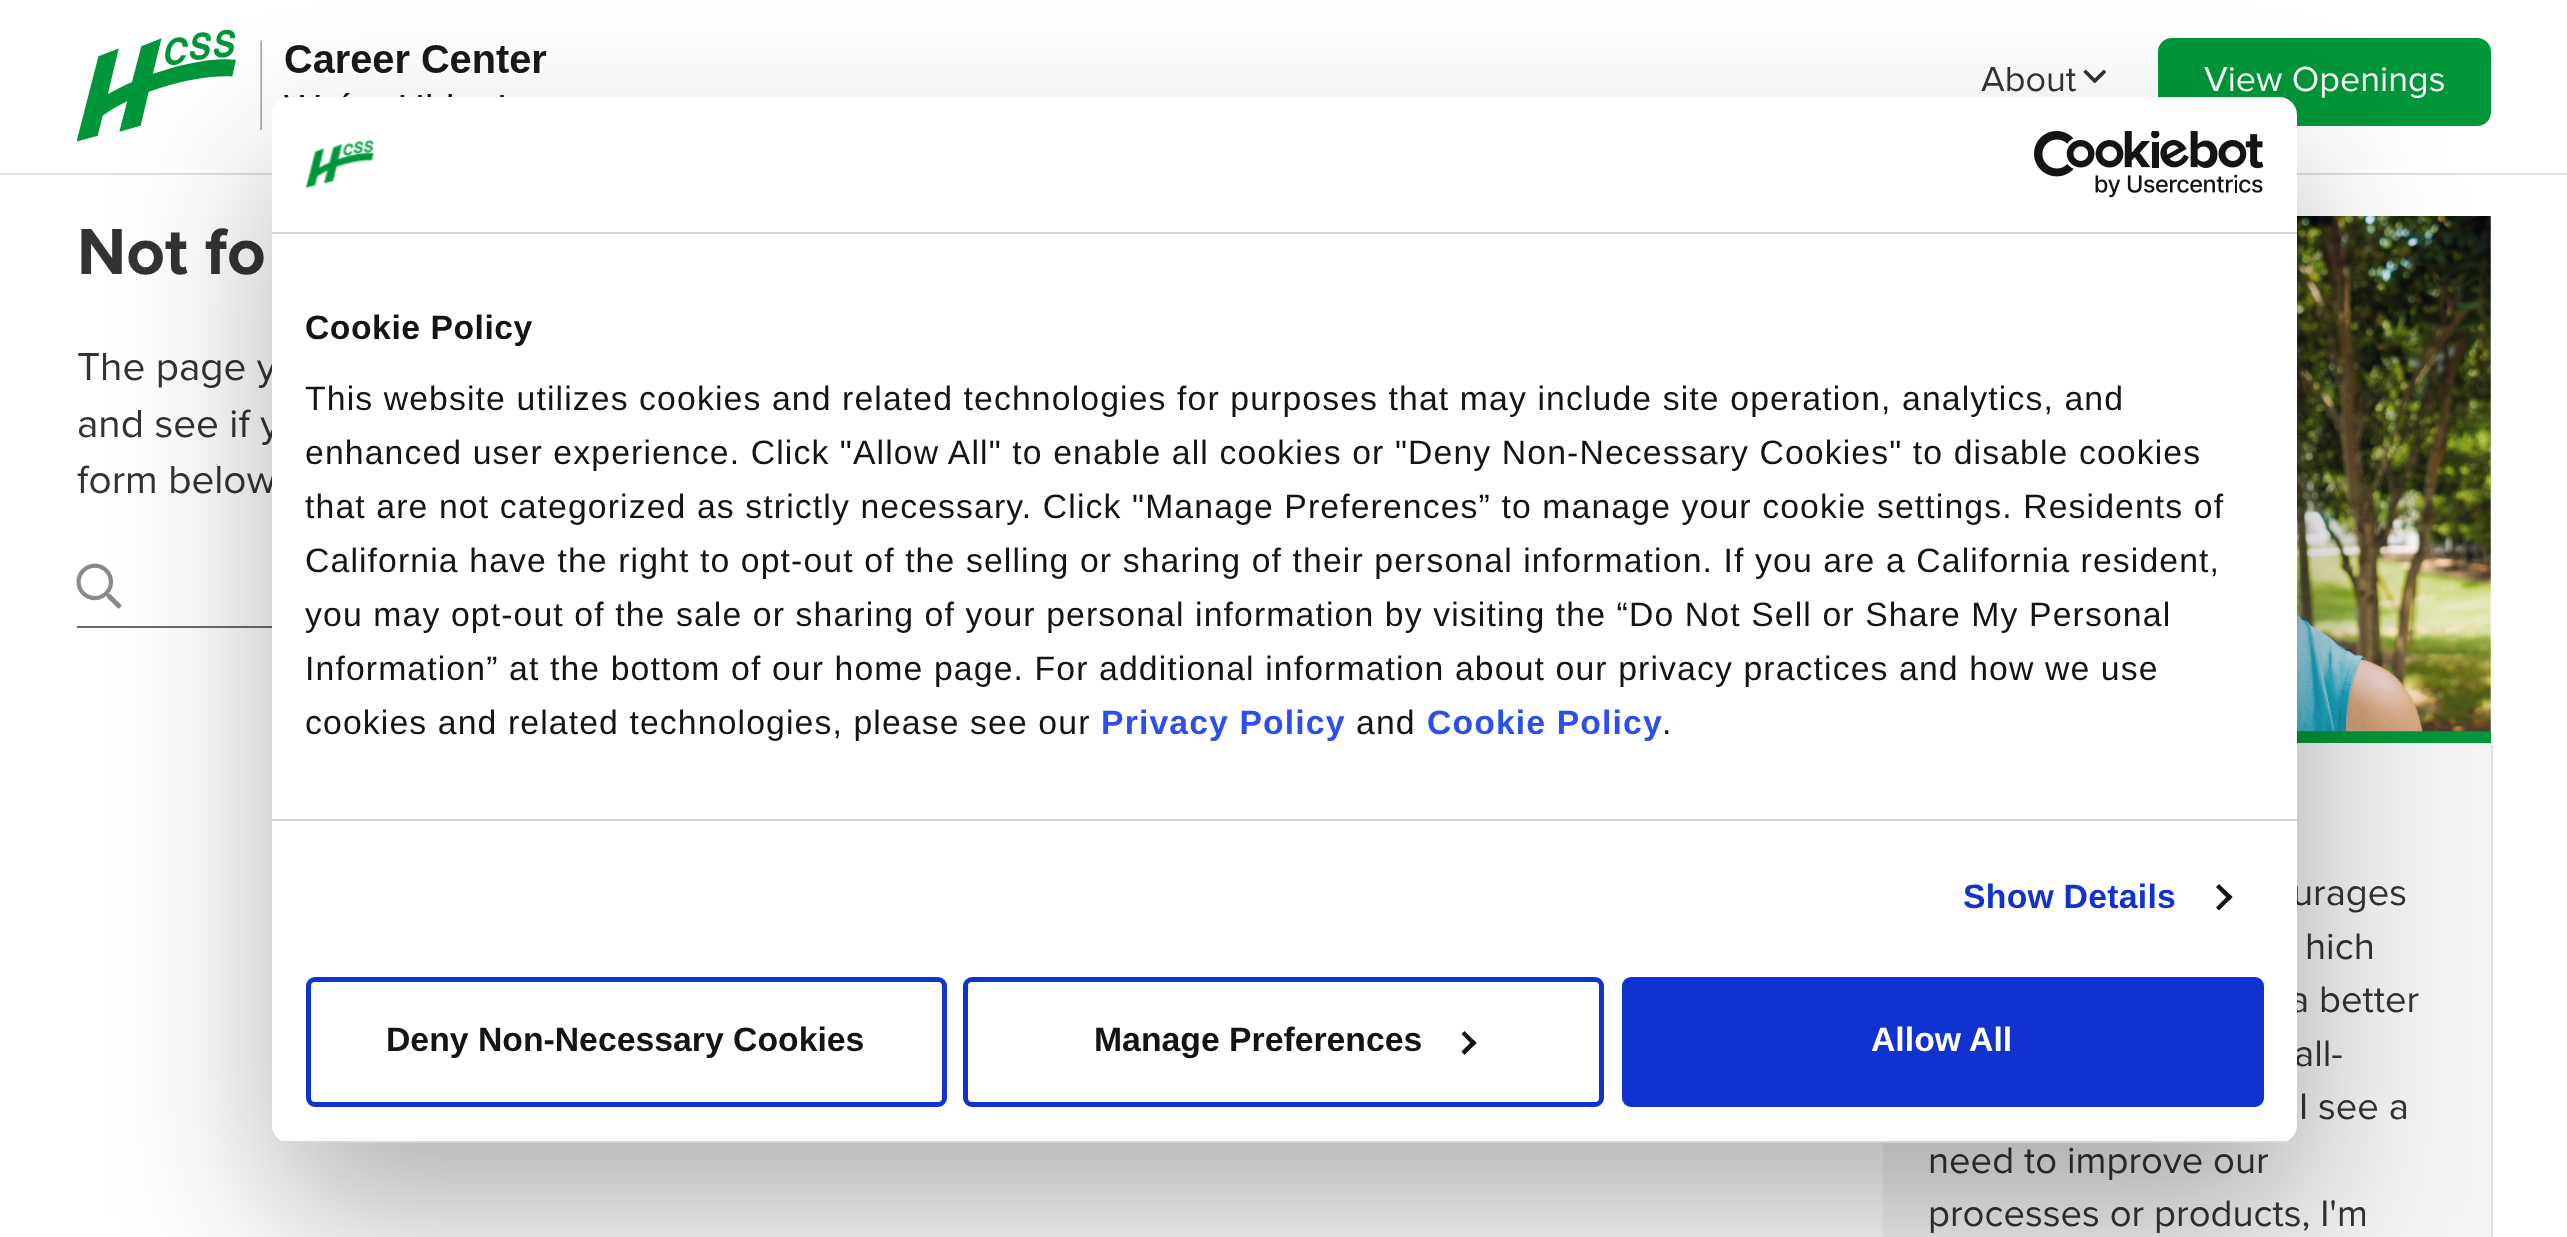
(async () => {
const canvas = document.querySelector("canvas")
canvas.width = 2567
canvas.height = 1237
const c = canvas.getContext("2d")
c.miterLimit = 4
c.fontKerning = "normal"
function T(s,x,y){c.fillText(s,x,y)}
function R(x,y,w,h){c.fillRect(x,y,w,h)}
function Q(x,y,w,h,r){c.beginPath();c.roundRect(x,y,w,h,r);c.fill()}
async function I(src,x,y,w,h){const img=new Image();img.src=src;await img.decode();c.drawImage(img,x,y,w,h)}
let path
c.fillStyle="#fff"
R(0,0,2567,1237)
c.fillStyle="#e0e0e0"
R(0,173,2567,2)
await I("1.png",77,29,470,113)
c.font="36px 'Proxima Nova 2'"
c.fillStyle="#333"
T("About",1981,91)
await I("2.png",2083,69,23,15)
c.fillStyle="#009639"
Q(2158,38,333,88,14)
c.fillStyle="#fff"
T("View Openings",2204,91)
c.font="67.5px Proxima Nova"
c.fillStyle="#333"
T("Not fo",77,274)
c.font="40.5px 'Proxima Nova 2'"
T("The page y",77,380)
T("and see if y",77,437)
T("form below",77,493)
await I("3.png",76,563,46,46)
c.fillStyle="#6c6c6c"
R(77,626,195,2)
c.fillStyle="#009639"
R(2297,731,194,12)
await I("4.png",2297,216,194,516)
c.fillStyle="#e0e0e0"
path = new Path2D("M1886 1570v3h607v-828h-2v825z")
c.fill(path)
c.fillStyle="#f3f3f3"
R(1883,743,608,494)
c.font="38.25px 'Proxima Nova 2'"
c.fillStyle="#333"
T("urages",2292,905)
T("hich",2305,959)
T("a better",2289,1012)
T("all-",2294,1066)
T("I see a",2299,1119)
T("need to improve our",1928,1173)
T("processes or products, I'm",1928,1226)
c.fillStyle="#0000004d"
c.filter="blur(76.5px)"
c.beginPath()
c.roundRect(272,169,2025,1046,18)
c.fill()
c.filter="none"
c.fillStyle="#fff"
Q(272,97,2025,1046,18)
c.fillStyle="#d6d6d6"
R(272,232,2025,2)
await I("5.png",305,140,69,49)
await I("6.png",2034,131,230,67)
R(272,819,2025,2)
c.letterSpacing="0.5px"
c.font="bold 33.75px Liberation Sans"
c.fillStyle="#141414"
T("Cookie Policy",305,339)
c.letterSpacing="1.12px"
c.font="33.75px Liberation Sans"
T("This website utilizes cookies and related technologies for purposes that may include site operation, analytics, and",305,410)
T("enhanced user experience. Click \"Allow All\" to enable all cookies or \"Deny Non-Necessary Cookies\" to disable cookies",305,464)
T("that are not categorized as strictly necessary. Click \"Manage Preferences” to manage your cookie settings. Residents of",305,518)
T("California have the right to opt-out of the selling or sharing of their personal information. If you are a California resident,",305,572)
T("you may opt-out of the sale or sharing of your personal information by visiting the “Do Not Sell or Share My Personal",305,626)
T("Information” at the bottom of our home page. For additional information about our privacy practices and how we use",305,680)
T("cookies and related technologies, please see our",305,734)
c.font="bold 33.75px Liberation Sans"
c.fillStyle="#2a4eef"
T("Privacy Policy",1101,734)
c.font="33.75px Liberation Sans"
c.fillStyle="#141414"
T("and",1356,734)
c.font="bold 33.75px Liberation Sans"
c.fillStyle="#2a4eef"
T("Cookie Policy",1427,734)
c.font="33.75px Liberation Sans"
c.fillStyle="#141414"
T(".",1662,734)
c.letterSpacing="0.25px"
c.font="bold 33.75px Liberation Sans"
c.fillStyle="#1032cf"
T("Show Details",1963,908)
c.fillStyle="#141414"
path = new Path2D("M2219 884l13.5 13l-3 3.5l-13.5-13.5z")
c.fill(path)
path = new Path2D("M2229.5 894l3 3l-13.5 13.5l-3-3z")
c.fill(path)
c.save()
c.beginPath()
c.roundRect(272,97,2025,1046,18)
c.clip()
c.fillStyle="#d6d6d6"
R(282,1141,2005,2)
c.restore()
c.beginPath()
c.roundRect(308.5,979.5,636,125,6.5)
c.strokeStyle="#1032cf"
c.lineWidth=5
c.stroke()
c.letterSpacing="0px"
T("Deny Non-Necessary Cookies",386,1051)
c.beginPath()
c.roundRect(965.5,979.5,636,125,6.5)
c.stroke()
T("Manage Preferences",1094,1051)
path = new Path2D("M1464.5 1031l12 12l-3 3l-12-12z")
c.fill(path)
path = new Path2D("M1473.5 1039.5l3 3.5l-12 12l-3-3.5z")
c.fill(path)
c.fillStyle="#1032cf"
c.beginPath()
c.roundRect(1624.5,979.5,637,125,6.5)
c.fill()
c.stroke()
c.fillStyle="#fff"
T("Allow All",1871,1051)
})()
